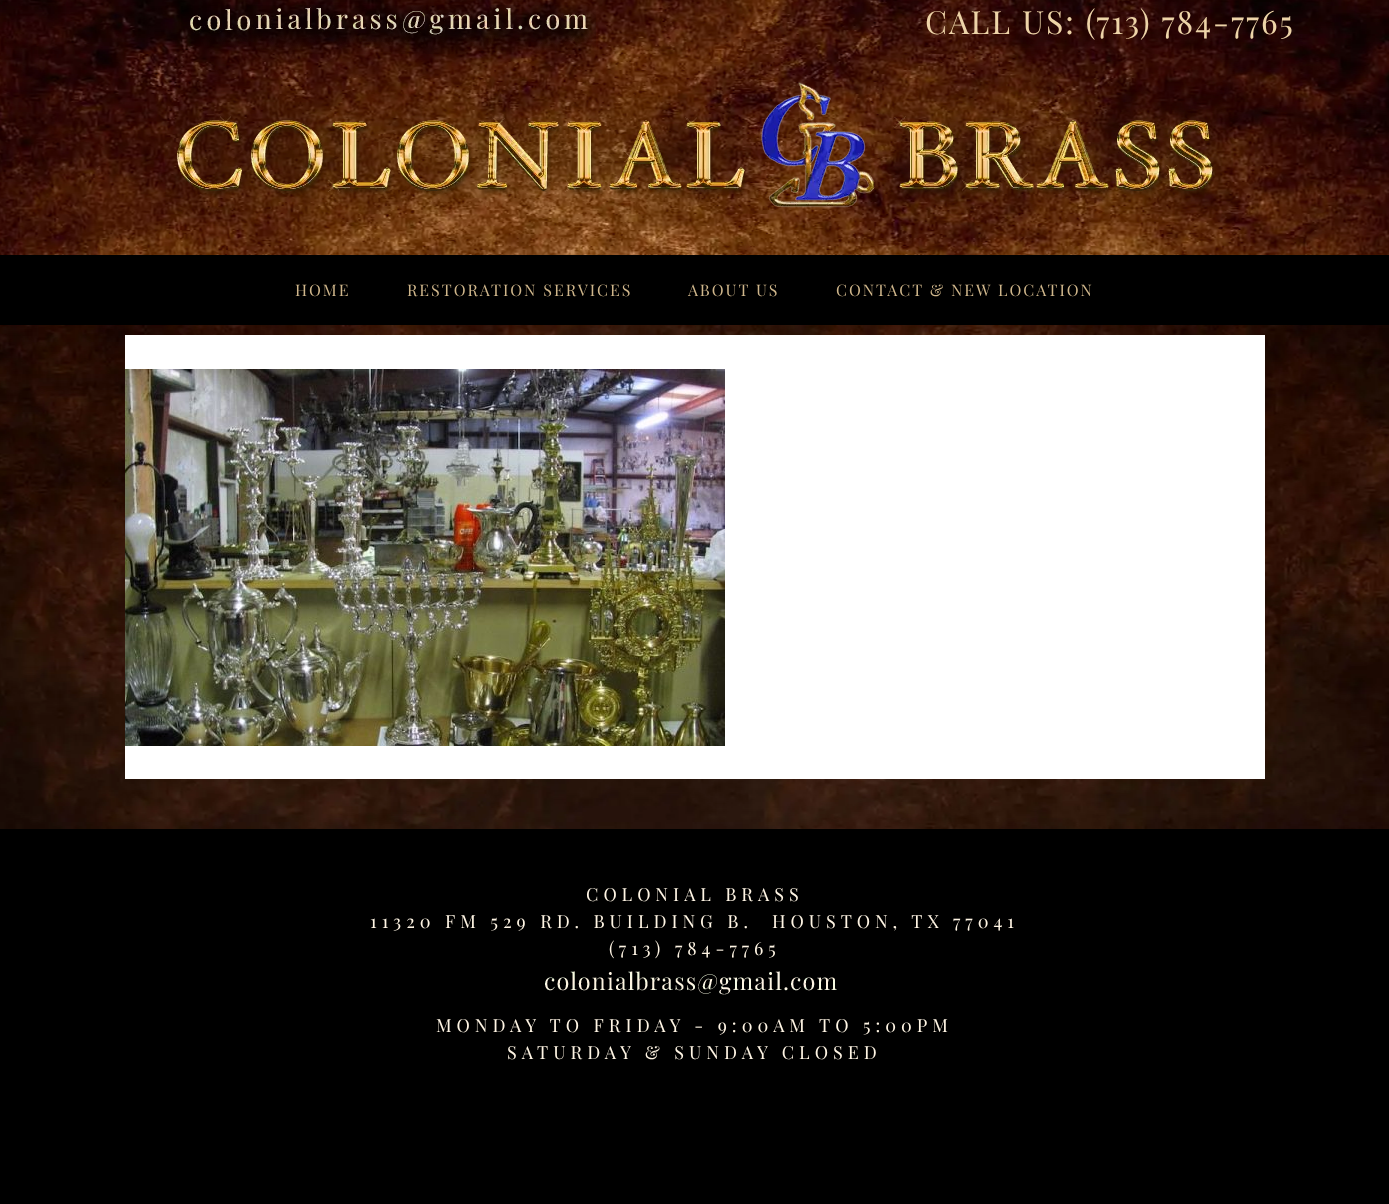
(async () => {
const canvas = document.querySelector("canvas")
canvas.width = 1389
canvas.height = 1204
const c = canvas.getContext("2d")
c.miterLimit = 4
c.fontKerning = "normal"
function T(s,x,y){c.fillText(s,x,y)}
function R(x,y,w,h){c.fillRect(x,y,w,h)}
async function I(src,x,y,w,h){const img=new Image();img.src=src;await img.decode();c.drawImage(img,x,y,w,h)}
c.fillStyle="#fff"
R(0,0,1389,1204)
await I("1.png",0,0,1389,829)
await I("2.png",181,5,415,49)
c.letterSpacing="2px"
c.font="32px Playfair Display"
c.fillStyle="#edd4a8"
T("CALL US: (713) 784-7765",925,34)
await I("3.png",165,82,1068,144)
c.fillStyle="#000"
R(0,255,1389,70)
c.font="16px Playfair Display"
c.fillStyle="#cfb68b"
T("HOME",295,296)
T("RESTORATION SERVICES",407,296)
T("ABOUT US",688,296)
T("CONTACT & NEW LOCATION",836,296)
c.fillStyle="#fff"
R(125,335,1140,444)
await I("4.png",125,369,600,377)
c.fillStyle="#000"
R(0,829,1389,375)
c.letterSpacing="5px"
c.font="18px Playfair Display"
c.fillStyle="#fff5e4"
T("COLONIAL BRASS",586,901)
T("11320 FM 529 RD. BUILDING B.  HOUSTON, TX 77041",370,928)
T("(713) 784-7765",609,955)
await I("5.png",545,971,292,24)
T("MONDAY TO FRIDAY - 9:00AM TO 5:00PM",436,1032)
T("SATURDAY & SUNDAY CLOSED",507,1059)
})()
